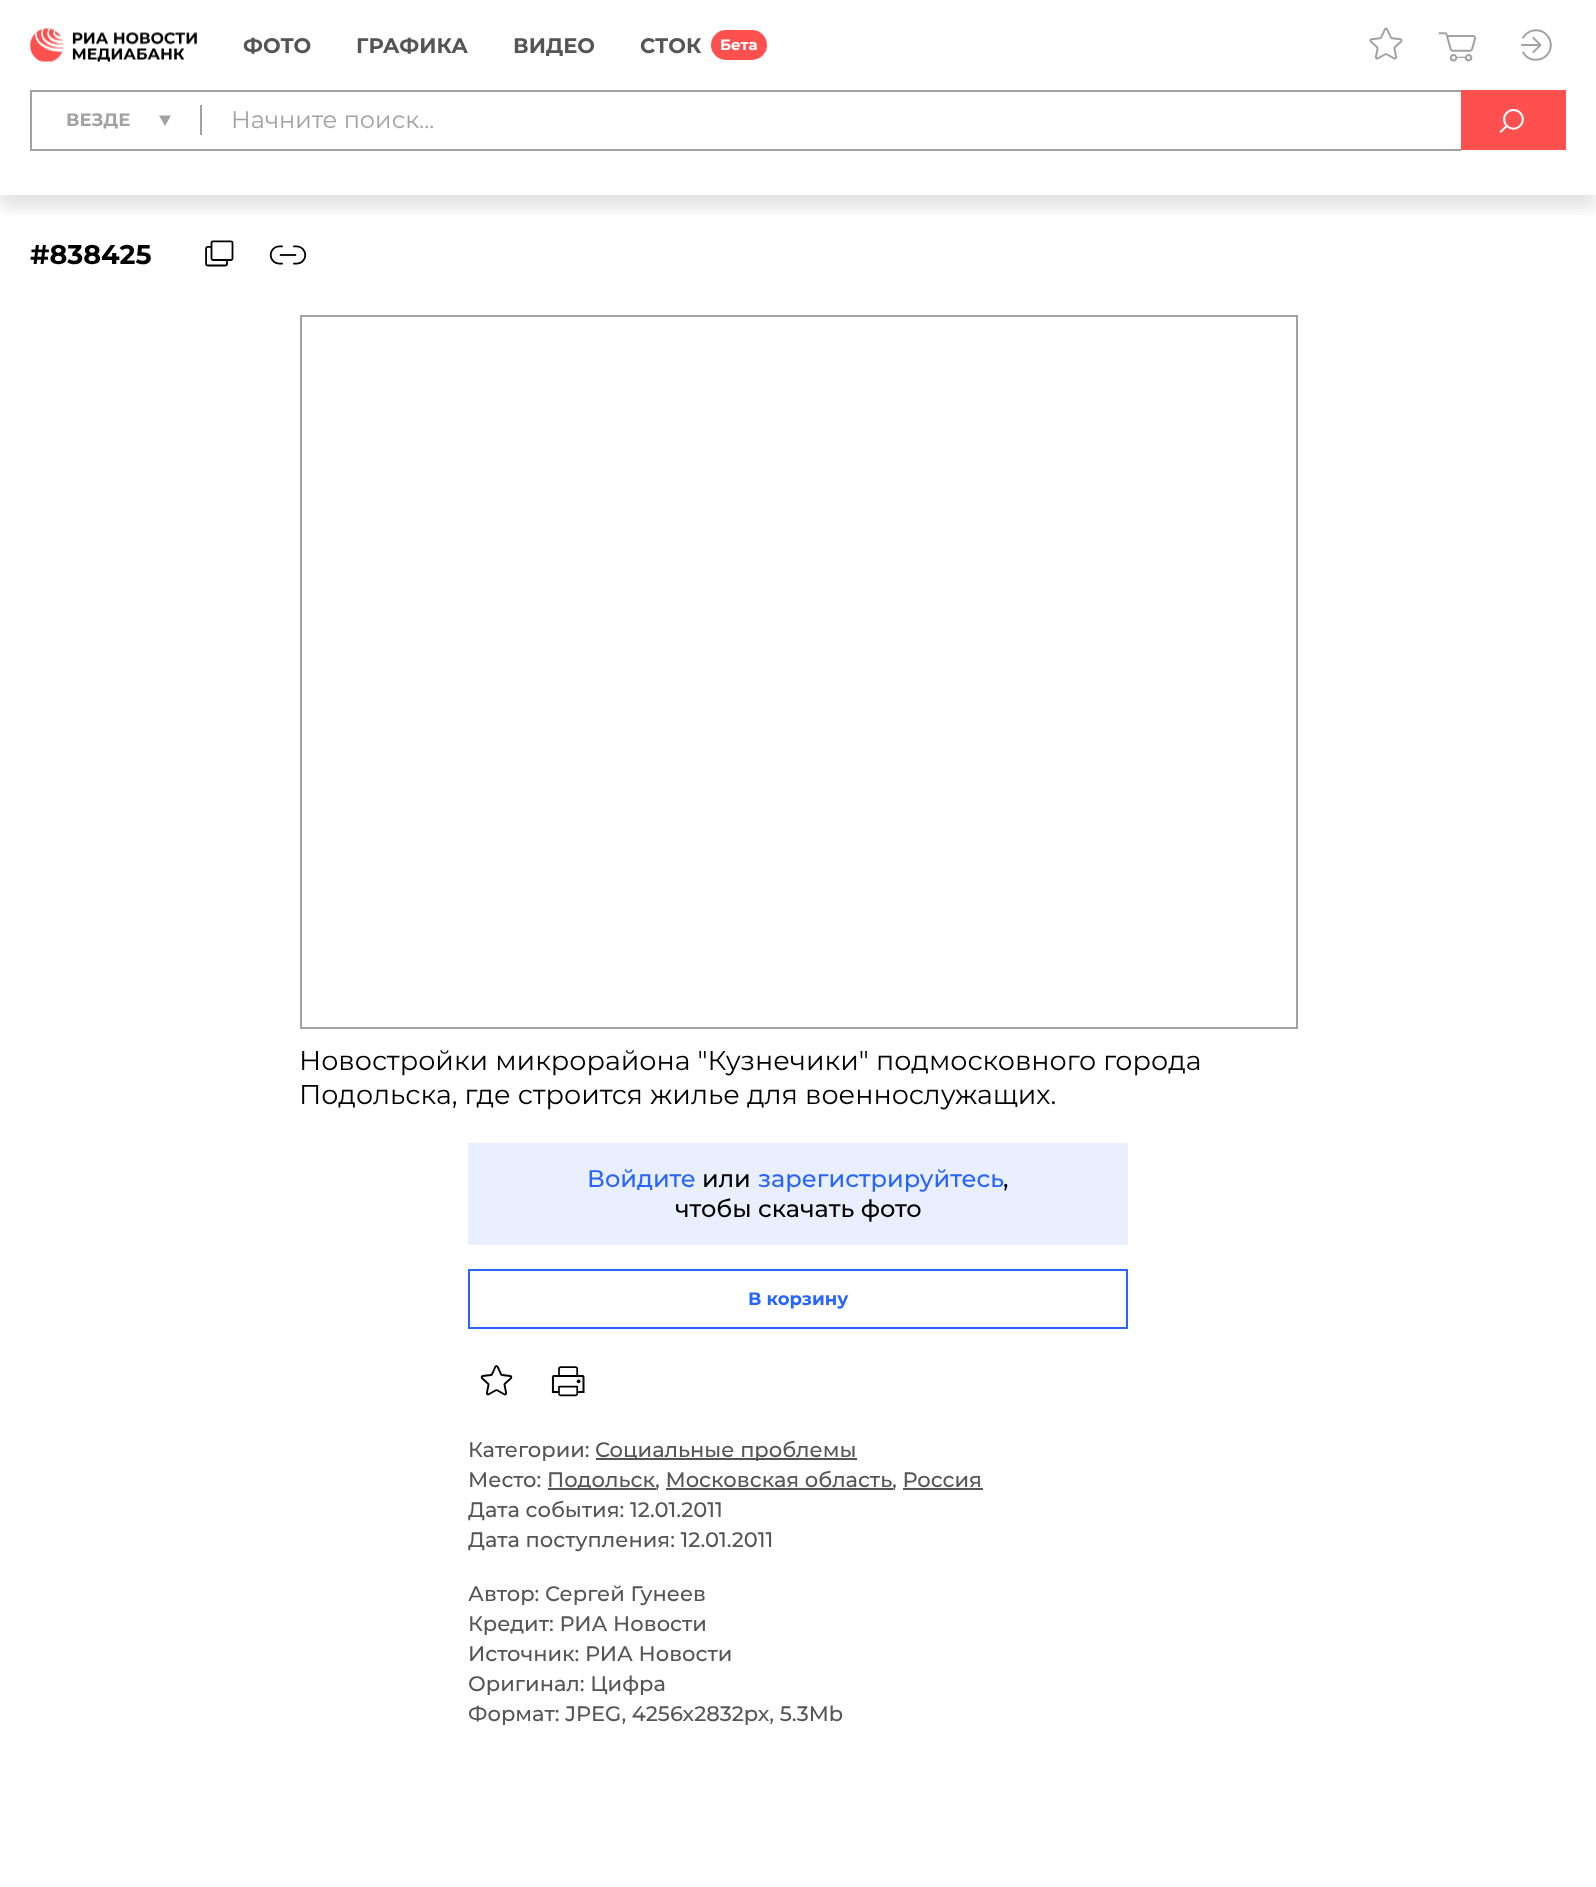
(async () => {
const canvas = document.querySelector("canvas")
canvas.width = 1596
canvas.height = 1887
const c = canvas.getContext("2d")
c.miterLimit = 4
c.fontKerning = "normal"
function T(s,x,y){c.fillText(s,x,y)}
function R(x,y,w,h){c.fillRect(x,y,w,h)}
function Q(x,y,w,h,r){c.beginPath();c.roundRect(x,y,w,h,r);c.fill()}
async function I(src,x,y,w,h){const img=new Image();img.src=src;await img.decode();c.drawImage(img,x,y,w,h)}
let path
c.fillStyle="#fff"
R(0,0,1596,1887)
c.save()
c.beginPath()
c.rect(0,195,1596,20)
c.clip()
c.fillStyle="#0000001a"
c.filter="blur(7.5px)"
c.beginPath()
c.rect(0,14,1596,195)
c.fill()
c.filter="none"
c.restore()
await I("1.png",30,28,167,34)
c.font="bold 21px Montserrat"
c.fillStyle="#555"
T("ФОТО",243,53)
T("ГРАФИКА",356,53)
T("ВИДЕО",513,53)
T("СТОК",640,53)
c.fillStyle="#ff5050"
Q(711,30,56,30,15)
c.font="bold 15px Montserrat"
c.fillStyle="#fff"
T("Бета",720,50)
await I("2.png",1369,27,34,33)
await I("3.png",1438,32,38,30)
await I("4.png",1521,29,31,32)
c.fillStyle="#a3a2a2"
R(30,90,1431,2)
R(30,149,1431,2)
R(30,90,2,60)
c.font="bold 18px Montserrat"
T("ВЕЗДЕ",66,126)
path = new Path2D("M159 115.5h12l-6 10.5z")
c.fill(path)
R(200,105,2,30)
c.font="24px Montserrat"
T("Начните поиск...",231,128)
c.fillStyle="#ff5050"
R(1461,90,105,60)
await I("5.png",1499,109,25,24)
c.font="bold 27px Montserrat"
c.fillStyle="#000"
T("#838425",30,264)
await I("6.png",205,240,29,27)
await I("7.png",269,245,38,20)
c.strokeStyle="#a3a2a2"
c.lineWidth=2
c.strokeRect(301,316,996,712)
c.font="27px Montserrat"
T("Новостройки микрорайона \"Кузнечики\" подмосковного города",299,1070)
T("Подольска, где строится жилье для военнослужащих.",299,1104)
c.fillStyle="#e9efff"
R(468,1143,660,102)
c.font="500 24px Montserrat"
c.fillStyle="#2864ff"
T("Войдите",587,1187)
c.fillStyle="#000"
T("или",702,1187)
c.fillStyle="#2864ff"
T("зарегистрируйтесь",758,1187)
c.fillStyle="#000"
T(",",1003,1187)
T("чтобы скачать фото",675,1217)
c.strokeStyle="#2864ff"
c.strokeRect(469,1270,658,58)
c.font="bold 18px Montserrat"
c.fillStyle="#2864ff"
T("В корзину",748,1305)
await I("8.png",480,1365,33,31)
await I("9.png",551,1366,34,31)
c.font="500 21px Montserrat"
c.fillStyle="#555"
T("Категории:",468,1457)
R(596,1458,261,2)
T("Социальные проблемы",595,1457)
T("Место:",468,1487)
R(548,1488,108,2)
T("Подольск, Московская область, Россия",547,1487)
R(666,1488,227,2)
R(903,1488,80,2)
T("Дата события: 12.01.2011",468,1517)
T("Дата поступления: 12.01.2011",468,1547)
T("Автор: Сергей Гунеев",468,1601)
T("Кредит: РИА Новости",468,1631)
T("Источник: РИА Новости",468,1661)
T("Оригинал: Цифра",468,1691)
T("Формат: JPEG, 4256x2832px, 5.3Mb",468,1721)
})()
